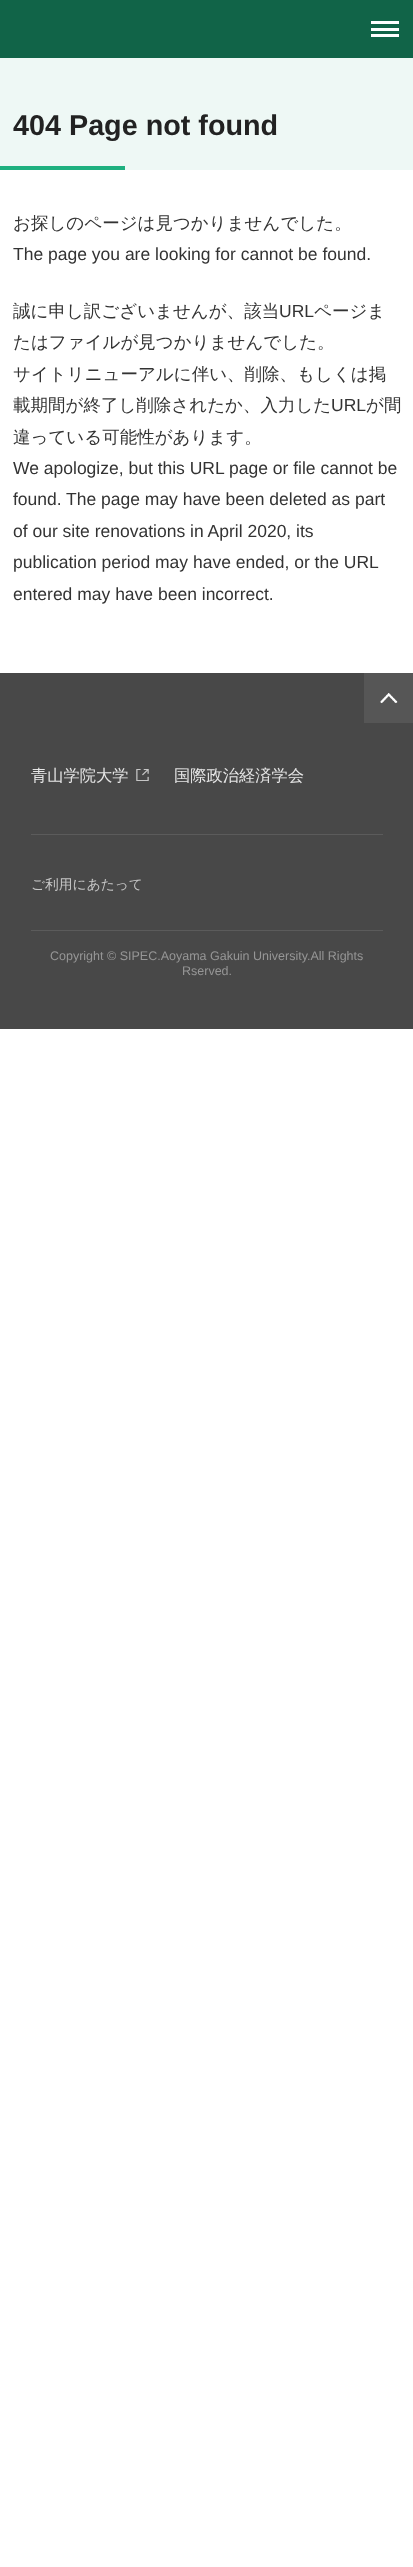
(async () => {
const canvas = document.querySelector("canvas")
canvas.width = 413
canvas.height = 2567
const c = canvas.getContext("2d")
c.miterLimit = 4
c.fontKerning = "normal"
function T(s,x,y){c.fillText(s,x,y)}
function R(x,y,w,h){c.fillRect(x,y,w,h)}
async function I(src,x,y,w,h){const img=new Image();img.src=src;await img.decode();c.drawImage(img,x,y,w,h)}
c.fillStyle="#fff"
R(0,0,413,2567)
c.fillStyle="#116448"
R(0,0,413,58)
c.fillStyle="#fff"
R(371,21,28,3)
R(371,28,28,3)
R(371,34,28,3)
c.fillStyle="#eef8f5"
R(0,58,413,112)
c.font="bold 28.75px Liberation Sans"
c.fillStyle="#222"
T("404 Page not found",13,135)
c.fillStyle="#1eb07f"
R(0,166,125,4)
c.font="500 17.5px WenQuanYi Zen Hei"
c.fillStyle="#333"
T("お探しのページは見つかりませんでした。",13,229)
c.font="17.5px Liberation Sans"
T("The page you are looking for cannot be found.",13,260)
c.font="500 17.5px WenQuanYi Zen Hei"
T("誠に申し訳ございませんが、該当",13,317)
c.font="17.5px Liberation Sans"
T("URL",279,317)
c.font="500 17.5px WenQuanYi Zen Hei"
T("ページま",314,317)
T("たはファイルが見つかりませんでした。",13,348)
T("サイトリニューアルに伴い、削除、もしくは掲",13,380)
T("載期間が終了し削除されたか、入力した",13,411)
c.font="17.5px Liberation Sans"
T("URL",331,411)
c.font="500 17.5px WenQuanYi Zen Hei"
T("が間",366,411)
T("違っている可能性があります。",13,443)
c.font="17.5px Liberation Sans"
T("We apologize, but this URL page or file cannot be",13,474)
T("found.",13,505)
T("The page may have been deleted as part",66,505)
T("of our site renovations in April 2020, its",13,537)
T("publication period may have ended, or the URL",13,568)
T("entered may have been incorrect.",13,600)
c.fillStyle="#484848"
R(0,673,413,356)
c.fillStyle="#565656"
R(364,673,49,50)
await I("1.png",380,693,18,11)
c.font="500 16.25px WenQuanYi Zen Hei"
c.fillStyle="#e6e6e6"
T("青山学院大学",31,781)
await I("2.png",136,769,13,12)
T("国際政治経済学会",174,781)
c.fillStyle="#5b5b5b"
R(31,834,352,1)
c.font="500 13.75px WenQuanYi Zen Hei"
c.fillStyle="#c6c6c6"
T("ご利用にあたって",31,889)
c.fillStyle="#5b5b5b"
R(31,930,352,1)
c.font="12.5px Liberation Sans"
c.fillStyle="#969696"
T("Copyright © SIPEC.Aoyama Gakuin University.All Rights",50,960)
T("Rserved.",182,975)
})()
